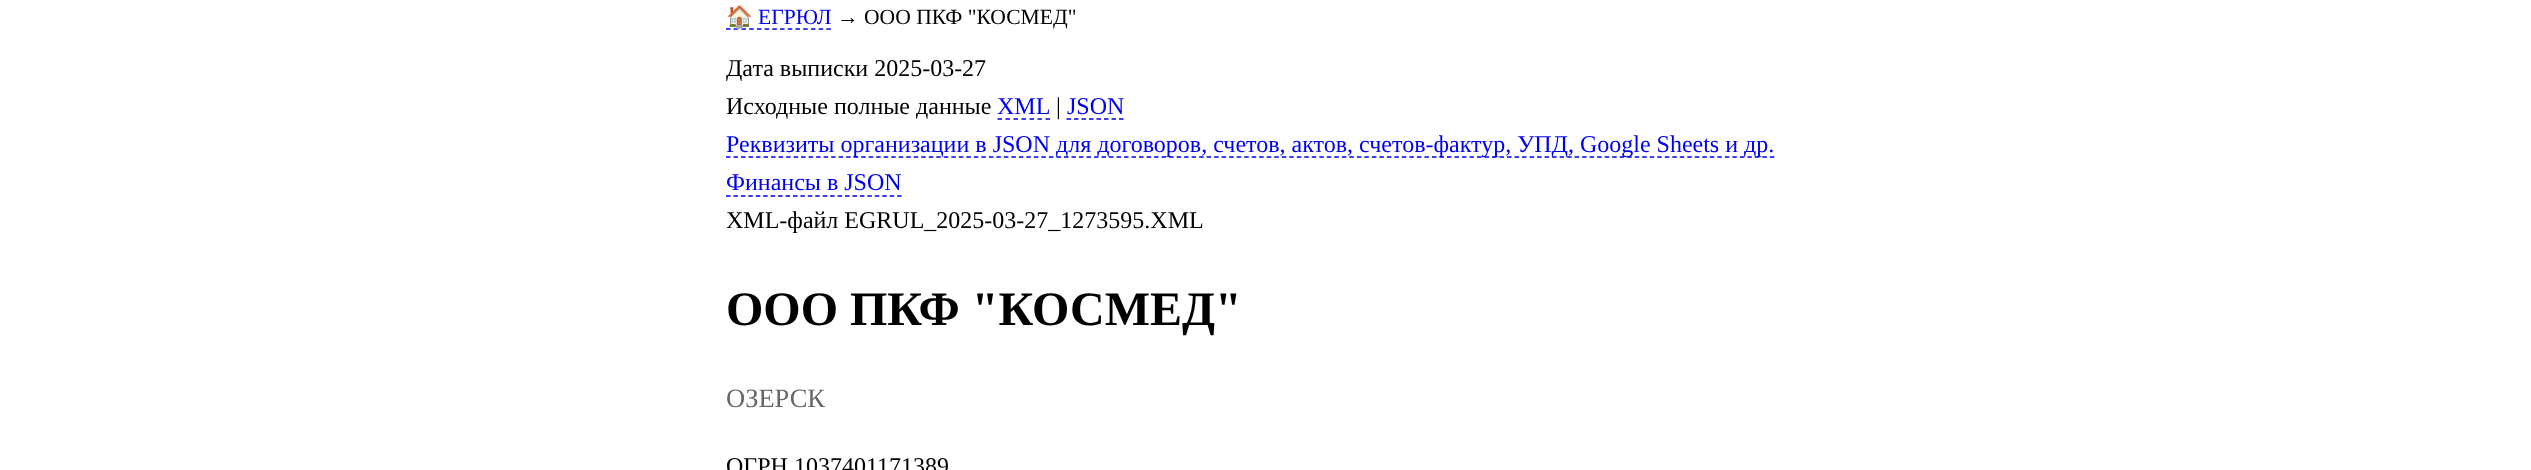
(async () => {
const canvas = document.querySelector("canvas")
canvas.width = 2531
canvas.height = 470
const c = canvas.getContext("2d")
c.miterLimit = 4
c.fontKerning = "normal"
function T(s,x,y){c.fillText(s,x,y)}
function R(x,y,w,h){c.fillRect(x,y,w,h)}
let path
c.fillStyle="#fff"
R(0,0,2531,470)
path = new Path2D("M726 29h105")
c.strokeStyle="#00e"
c.lineWidth=1.5
c.setLineDash([4.5,3.22])
c.stroke(path)
c.font="21.6px Noto Color Emoji"
c.fillStyle="#00e"
T("🏠",726,24)
c.font="21.6px Liberation Serif"
T("ЕГРЮЛ",758,24)
c.fillStyle="#000"
T("→ ООО ПКФ \"КОСМЕД\"",837,24)
c.font="24px Liberation Serif"
T("Дата выписки 2025-03-27",726,76)
T("Исходные полные данные",726,114)
c.fillStyle="#00e"
T("XML",997,114)
path = new Path2D("M997.5 119h52.5")
c.setLineDash([4.5,3.5])
c.stroke(path)
c.fillStyle="#000"
T("|",1056,114)
c.fillStyle="#00e"
T("JSON",1067,114)
path = new Path2D("M1066.5 119h57")
c.setLineDash([4.5,3])
c.stroke(path)
path = new Path2D("M726 157h1048.5")
c.setLineDash([4.5,3.01])
c.stroke(path)
T("Реквизиты организации в JSON для договоров, счетов, актов, счетов-фактур, УПД, Google Sheets и др.",726,152)
T("Финансы в JSON",726,190)
path = new Path2D("M726 196h175.5")
c.setLineDash([4.5,2.94])
c.stroke(path)
c.fillStyle="#000"
T("XML-файл EGRUL_2025-03-27_1273595.XML",726,228)
c.font="bold 48px Liberation Serif"
T("ООО ПКФ \"КОСМЕД\"",726,325)
c.font="26.5px Liberation Serif"
c.fillStyle="#666"
T("ОЗЕРСК",726,407)
c.font="24px Liberation Serif"
c.fillStyle="#000"
T("ОГРН 1037401171389",726,474)
})()
